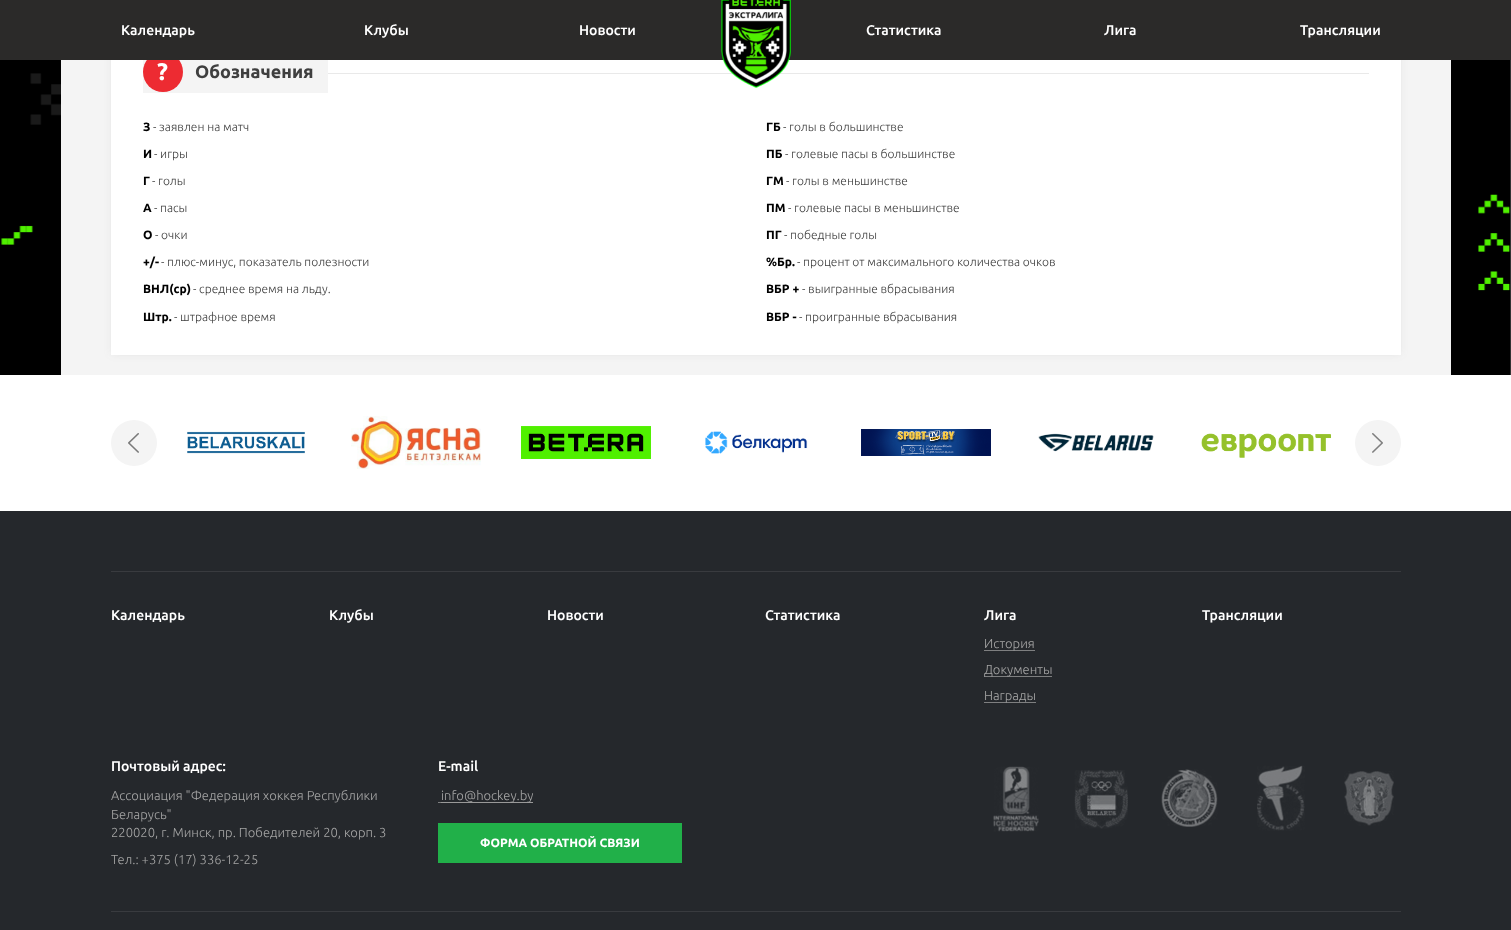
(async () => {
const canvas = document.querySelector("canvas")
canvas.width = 1511
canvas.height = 930
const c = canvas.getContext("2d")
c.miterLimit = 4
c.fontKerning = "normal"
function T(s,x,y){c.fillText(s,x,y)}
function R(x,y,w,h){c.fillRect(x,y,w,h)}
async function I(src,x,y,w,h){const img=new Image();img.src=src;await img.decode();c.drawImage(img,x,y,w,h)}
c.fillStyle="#fff"
R(0,0,1511,930)
await I("2.png",0,60,1511,315)
c.fillStyle="#f4f4f4"
R(61,60,1390,315)
c.fillStyle="#5555551a"
c.filter="blur(4px)"
c.beginPath()
c.rect(112,-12,1288,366)
c.fill()
c.filter="none"
c.fillStyle="#fff"
R(111,60,1290,295)
c.fillStyle="#f4f4f4"
R(143,60,185,33)
c.fillStyle="#ed2b32"
c.beginPath()
c.arc(163,72,20,0,7)
c.fill()
c.fillStyle="#2b2a29"
R(0,0,1511,60)
c.font="500 14px Ubuntu"
c.fillStyle="#fff"
T("Календарь",121,35)
T("Клубы",364,35)
T("Новости",579,35)
c.fillStyle="#e9e9e9"
R(328,73,1041,1)
await I("1.png",720,0,71,88)
c.fillStyle="#fff"
T("Статистика",866,35)
T("Лига",1104,35)
T("Трансляции",1300,35)
c.font="bold 24px Ubuntu"
T("?",157,80)
c.font="bold 18px Ubuntu"
c.fillStyle="#3f3f3f"
T("Обозначения",195,78)
c.font="bold 12px Ubuntu"
c.fillStyle="#000"
T("З",143,131)
c.font="300 12px Ubuntu"
c.fillStyle="#3f3f3f"
T("- заявлен на матч",153,131)
c.font="bold 12px Ubuntu"
c.fillStyle="#000"
T("И",143,158)
c.font="300 12px Ubuntu"
c.fillStyle="#3f3f3f"
T("- игры",154,158)
c.font="bold 12px Ubuntu"
c.fillStyle="#000"
T("Г",143,185)
c.font="300 12px Ubuntu"
c.fillStyle="#3f3f3f"
T("- голы",152,185)
c.font="bold 12px Ubuntu"
c.fillStyle="#000"
T("А",143,212)
c.font="300 12px Ubuntu"
c.fillStyle="#3f3f3f"
T("- пасы",154,212)
c.font="bold 12px Ubuntu"
c.fillStyle="#000"
T("О",143,239)
c.font="300 12px Ubuntu"
c.fillStyle="#3f3f3f"
T("- очки",155,239)
c.font="bold 12px Ubuntu"
c.fillStyle="#000"
T("+/-",143,266)
c.font="300 12px Ubuntu"
c.fillStyle="#3f3f3f"
T("- плюс-минус, показатель полезности",161,266)
c.font="bold 12px Ubuntu"
c.fillStyle="#000"
T("ВНЛ(ср)",143,293)
c.font="300 12px Ubuntu"
c.fillStyle="#3f3f3f"
T("- среднее время на льду.",193,293)
c.font="bold 12px Ubuntu"
c.fillStyle="#000"
T("Штр.",143,321)
c.font="300 12px Ubuntu"
c.fillStyle="#3f3f3f"
T("- штрафное время",174,321)
c.font="bold 12px Ubuntu"
c.fillStyle="#000"
T("ГБ",766,131)
c.font="300 12px Ubuntu"
c.fillStyle="#3f3f3f"
T("- голы в большинстве",783,131)
c.font="bold 12px Ubuntu"
c.fillStyle="#000"
T("ПБ",766,158)
c.font="300 12px Ubuntu"
c.fillStyle="#3f3f3f"
T("- голевые пасы в большинстве",785,158)
c.font="bold 12px Ubuntu"
c.fillStyle="#000"
T("ГМ",766,185)
c.font="300 12px Ubuntu"
c.fillStyle="#3f3f3f"
T("- голы в меньшинстве",786,185)
c.font="bold 12px Ubuntu"
c.fillStyle="#000"
T("ПМ",766,212)
c.font="300 12px Ubuntu"
c.fillStyle="#3f3f3f"
T("- голевые пасы в меньшинстве",788,212)
c.font="bold 12px Ubuntu"
c.fillStyle="#000"
T("ПГ",766,239)
c.font="300 12px Ubuntu"
c.fillStyle="#3f3f3f"
T("- победные голы",784,239)
c.font="bold 12px Ubuntu"
c.fillStyle="#000"
T("%Бр.",766,266)
c.font="300 12px Ubuntu"
c.fillStyle="#3f3f3f"
T("- процент от максимального количества очков",797,266)
c.font="bold 12px Ubuntu"
c.fillStyle="#000"
T("ВБР +",766,293)
c.font="300 12px Ubuntu"
c.fillStyle="#3f3f3f"
T("- выигранные вбрасывания",802,293)
c.font="bold 12px Ubuntu"
c.fillStyle="#000"
T("ВБР -",766,321)
c.font="300 12px Ubuntu"
c.fillStyle="#3f3f3f"
T("- проигранные вбрасывания",799,321)
c.fillStyle="#25282c"
R(0,511,1511,419)
c.fillStyle="#f4f4f4"
c.beginPath()
c.arc(134,443,23,0,7)
c.fill()
await I("3.png",128,433,11,20)
await I("4.png",187,431,118,23)
await I("5.png",351,416,130,53)
await I("6.png",521,426,130,33)
await I("7.png",705,431,103,23)
await I("8.png",861,429,130,27)
await I("9.png",1038,433,116,19)
await I("10.png",1201,433,130,25)
c.beginPath()
c.arc(1378,443,23,0,7)
c.fill()
await I("11.png",1372,433,11,20)
c.fillStyle="#393b3f"
R(111,571,1290,1)
c.font="500 14px Ubuntu"
c.fillStyle="#fff"
T("Календарь",111,620)
T("Клубы",329,620)
T("Новости",547,620)
T("Статистика",765,620)
T("Лига",984,620)
c.fillStyle="#7e7f80"
R(984,650,51,1)
c.font="300 13px Ubuntu"
c.fillStyle="#a4a4a4"
T("История",984,648)
c.fillStyle="#7e7f80"
R(984,676,68,1)
c.fillStyle="#a4a4a4"
T("Документы",984,674)
c.fillStyle="#7e7f80"
R(984,702,52,1)
c.fillStyle="#a4a4a4"
T("Награды",984,700)
c.font="500 14px Ubuntu"
c.fillStyle="#fff"
T("Трансляции",1202,620)
T("Почтовый адрес:",111,771)
c.font="300 13px Ubuntu"
c.fillStyle="#a4a4a4"
T("Ассоциация \"Федерация хоккея Республики",111,800)
T("Беларусь\"",111,819)
T("220020, г. Минск, пр. Победителей 20, корп. 3",111,837)
T("Тел.: +375 (17) 336-12-25",111,864)
c.font="500 14px Ubuntu"
c.fillStyle="#fff"
T("E-mail",438,771)
c.fillStyle="#999"
R(441,802,92,1)
c.font="300 13px Ubuntu"
c.fillStyle="#a4a4a4"
T("info@hockey.by",441,800)
c.fillStyle="#7e7f80"
R(438,802,3,1)
c.fillStyle="#21b049"
R(438,823,244,40)
c.font="bold 12px Ubuntu"
c.fillStyle="#fff"
T("ФОРМА ОБРАТНОЙ СВЯЗИ",480,847)
await I("12.png",993,766,46,66)
await I("13.png",1074,770,54,59)
await I("14.png",1161,769,57,58)
await I("15.png",1257,765,48,66)
await I("16.png",1344,771,50,55)
c.fillStyle="#393b3f"
R(111,911,1290,1)
})()
